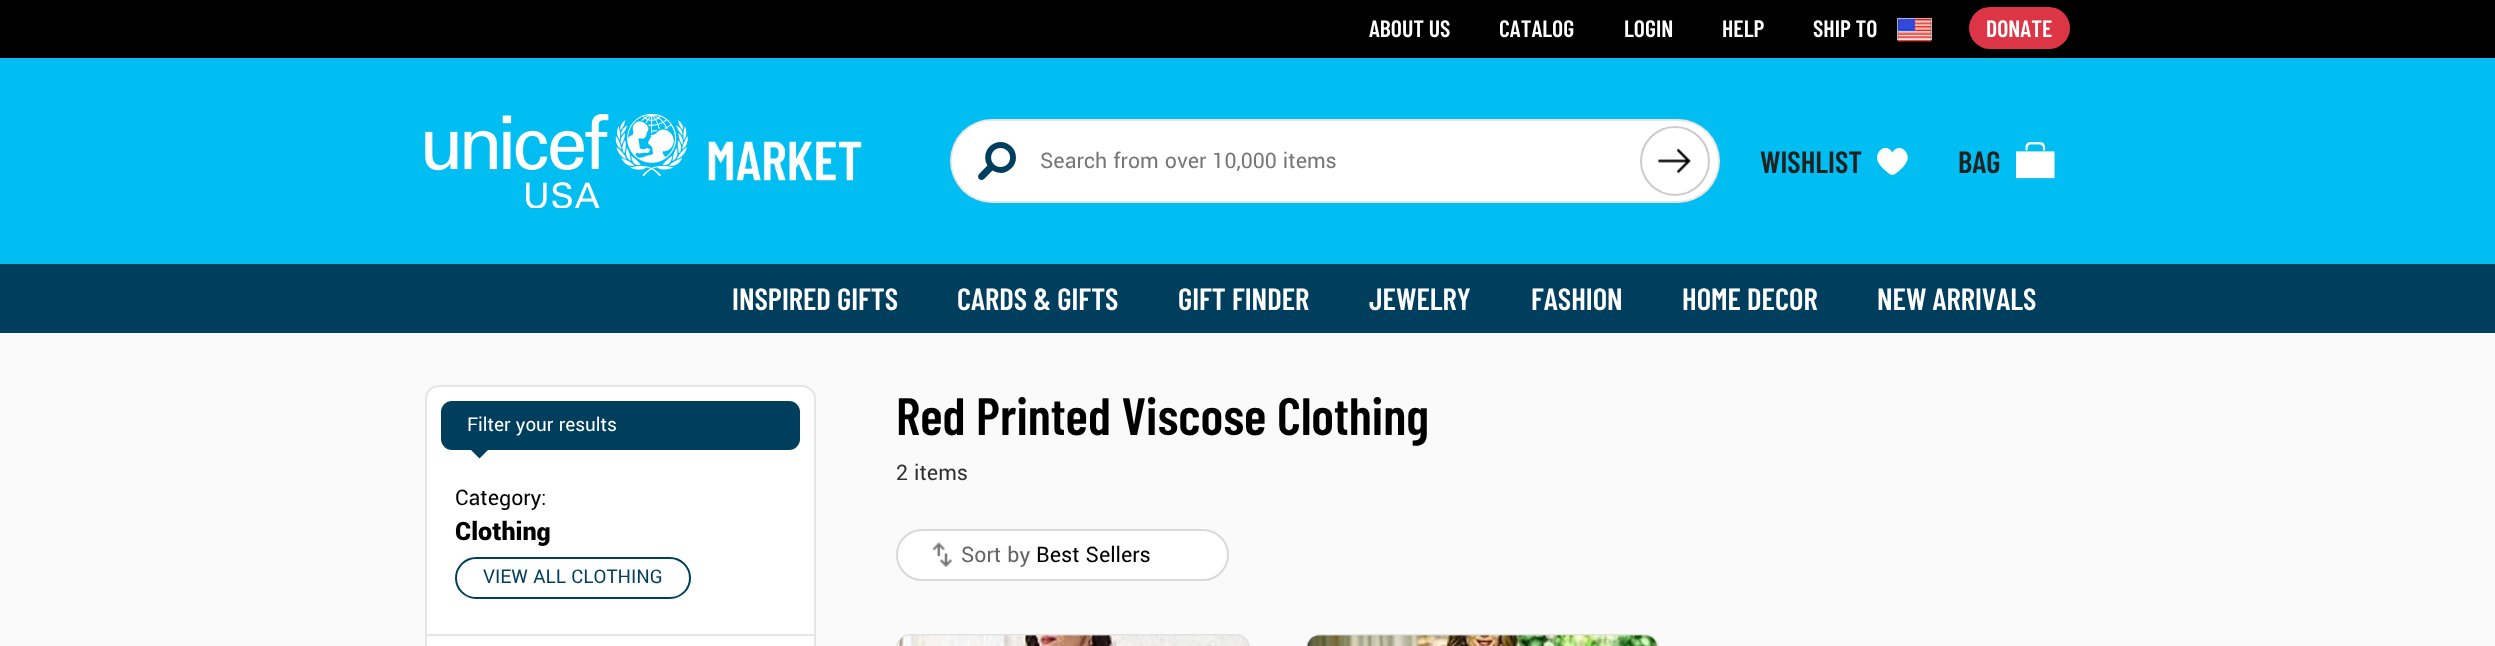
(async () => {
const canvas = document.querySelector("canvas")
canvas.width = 2495
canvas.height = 646
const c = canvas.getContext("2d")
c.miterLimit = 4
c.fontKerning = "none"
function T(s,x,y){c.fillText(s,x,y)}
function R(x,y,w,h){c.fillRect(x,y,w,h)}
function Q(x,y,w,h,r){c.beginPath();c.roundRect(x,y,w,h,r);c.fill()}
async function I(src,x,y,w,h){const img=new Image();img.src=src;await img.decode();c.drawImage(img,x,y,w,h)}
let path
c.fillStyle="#fafafa"
R(0,0,2495,646)
c.fillStyle="#00bdf2"
R(0,58,2495,206)
c.fillStyle="#000"
R(0,0,2495,58)
c.font="600 23.75px Barlow Condensed"
c.fillStyle="#fff"
T("ABOUT US",1369,37)
T("CATALOG",1499,37)
T("LOGIN",1624,37)
T("HELP",1722,37)
T("SHIP TO",1813,37)
await I("1.png",1897,17,35,25)
c.strokeStyle="#ffffff99"
c.strokeRect(1897.5,18.5,34,21)
c.fillStyle="#dc3545"
Q(1969,7,101,42,21)
c.fillStyle="#fff"
T("DONATE",1986,37)
await I("2.png",425,114,263,94)
await I("3.png",708,141,154,40)
Q(950,119,770,84,42)
c.beginPath()
c.roundRect(951,120,768,82,41)
c.strokeStyle="#0000001a"
c.lineWidth=2
c.stroke()
c.beginPath()
c.roundRect(952,121,688,80,[40,0,0,40])
c.fill()
c.font="38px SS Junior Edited"
c.fillStyle="#003e5e"
T("🔎",978,180)
c.font="23.75px Yantramanav"
c.fillStyle="#777"
T("Search from over 10,000 items",1040,168)
c.beginPath()
c.arc(1675,161,34,0,7)
c.strokeStyle="#ccc"
c.stroke()
await I("4.png",1658,148,33,26)
c.font="600 30.75px Barlow Condensed"
c.fillStyle="#212121"
T("WISHLIST",1760,173)
c.font="30.75px SS Junior Edited"
c.fillStyle="#fff"
T("♥",1877,175)
c.font="600 30.75px Barlow Condensed"
c.fillStyle="#212121"
T("BAG",1958,173)
await I("5.png",2016,142,39,37)
c.fillStyle="#003e5e"
R(0,264,2495,69)
c.fillStyle="#fff"
T("INSPIRED GIFTS",732,310)
T("CARDS & GIFTS",957,310)
T("GIFT FINDER",1178,310)
T("JEWELRY",1369,310)
T("FASHION",1531,310)
T("HOME DECOR",1682,310)
T("NEW ARRIVALS",1877,310)
c.beginPath()
c.roundRect(426,386,389,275,13)
c.fill()
c.strokeStyle="#e5e5e5"
c.stroke()
c.fillStyle="#003e5e"
Q(441,401,359,49,11)
c.font="21px Yantramanav"
c.fillStyle="#fff"
T("Filter your results",467,431)
c.fillStyle="#003e5e"
path = new Path2D("M467 446h25l-12.5 12.5z")
c.fill(path)
c.font="23.75px Yantramanav"
c.fillStyle="#000"
T("Category:",455,505)
c.font="900 28px Yantramanav"
T("Clothing",455,540)
c.beginPath()
c.roundRect(456,558,234,40,20)
c.strokeStyle="#003e5e"
c.stroke()
c.font="21px Yantramanav"
c.fillStyle="#003e5e"
T("VIEW ALL CLOTHING",483,583)
c.fillStyle="#e6e6e6"
R(427,634,387,2)
c.font="600 52.5px Barlow Condensed"
c.fillStyle="#000"
T("Red Printed Viscose Clothing",896,435)
c.font="23.75px Yantramanav"
c.fillStyle="#323232"
T("2 items",896,480)
c.fillStyle="#fff"
c.beginPath()
c.roundRect(897,530,331,50,25)
c.fill()
c.strokeStyle="#d9d9d9"
c.stroke()
await I("6.png",932,542,20,25)
c.fillStyle="#666"
T("Sort by",961,562)
c.fillStyle="#000"
T("Best Sellers",1036,562)
c.beginPath()
c.roundRect(897,635,352,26,13)
c.strokeStyle="#e1e1e1"
c.stroke()
await I("7.png",898,635,350,11)
c.beginPath()
c.roundRect(1307,635,351,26,13)
c.stroke()
await I("8.png",1307,635,350,11)
})()
